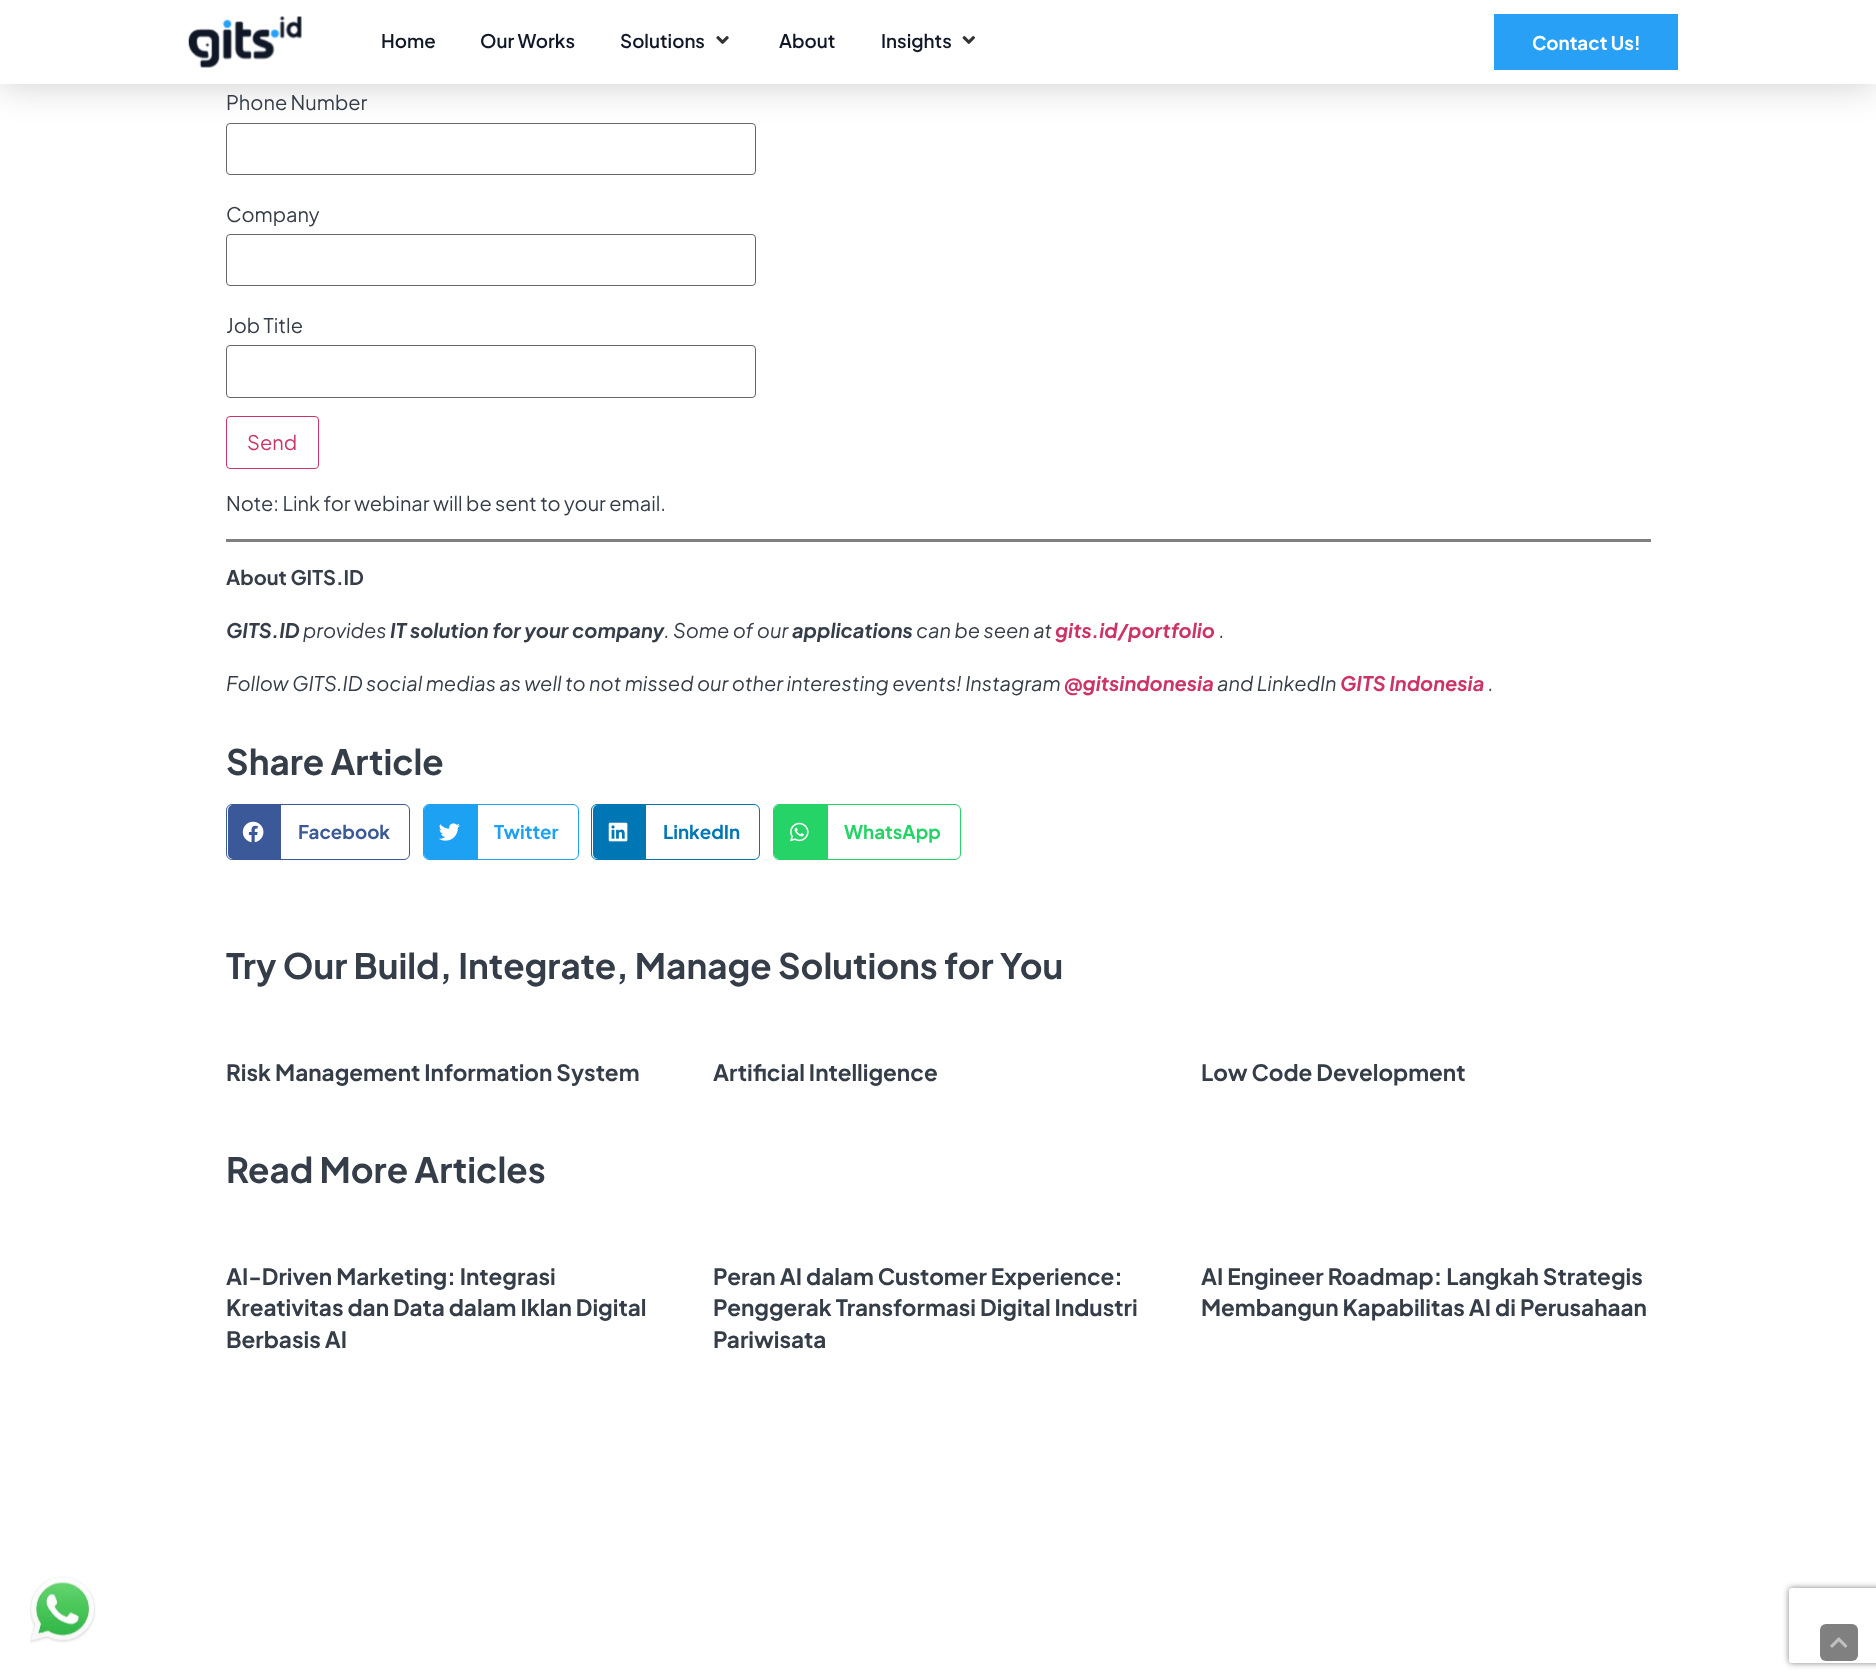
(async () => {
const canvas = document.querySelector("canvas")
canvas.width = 1876
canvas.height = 1679
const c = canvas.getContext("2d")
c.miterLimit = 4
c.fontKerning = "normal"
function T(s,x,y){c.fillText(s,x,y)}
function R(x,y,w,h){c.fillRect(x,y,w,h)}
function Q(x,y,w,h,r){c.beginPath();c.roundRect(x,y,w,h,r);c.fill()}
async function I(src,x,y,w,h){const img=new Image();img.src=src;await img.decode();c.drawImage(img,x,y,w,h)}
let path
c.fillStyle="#fff"
R(0,0,1876,1679)
c.beginPath()
c.roundRect(226.5,123.5,529,51,3.5)
c.strokeStyle="#666"
c.stroke()
c.fillStyle="#00000033"
c.filter="blur(19px)"
c.beginPath()
c.rect(0,0,1876,84)
c.fill()
c.filter="none"
c.fillStyle="#fff"
R(0,0,1876,84)
await I("1.png",188,16,114,52)
c.font="600 18.75px Plus Jakarta Sans"
c.fillStyle="#101828"
T("Home",381,48)
T("Our Works",480,48)
T("Solutions",620,48)
await I("2.png",716,36,13,8)
T("About",779,48)
T("Insights",881,48)
await I("3.png",962,36,13,8)
c.fillStyle="#28a0f6"
R(1494,14,184,56)
c.font="bold 18.75px Plus Jakarta Sans"
c.fillStyle="#fff"
T("Contact Us!",1532,50)
c.font="20px Plus Jakarta Sans"
c.fillStyle="#353d49"
T("Phone Number",226,110)
T("Company",226,222)
c.beginPath()
c.roundRect(226.5,234.5,529,51,3.5)
c.stroke()
T("Job Title",226,333)
c.beginPath()
c.roundRect(226.5,345.5,529,52,3.5)
c.stroke()
c.beginPath()
c.roundRect(226.5,416.5,92,52,3.5)
c.strokeStyle="#c36"
c.stroke()
c.fillStyle="#c36"
T("Send",247,450)
c.fillStyle="#353d49"
T("Note: Link for webinar will be sent to your email.",226,511)
c.fillStyle="#808080"
R(226,539,1425,3)
c.font="bold 20px Plus Jakarta Sans"
c.fillStyle="#353d49"
T("About GITS.ID",226,585)
c.font="italic bold 20px Plus Jakarta Sans"
T("GITS.ID",226,638)
c.font="italic 20px Plus Jakarta Sans"
T("provides",303,638)
c.font="italic bold 20px Plus Jakarta Sans"
T("IT solution for your company",390,638)
c.font="italic 20px Plus Jakarta Sans"
T(". Some of our",664,638)
c.font="italic bold 20px Plus Jakarta Sans"
T("applications",792,638)
c.font="italic 20px Plus Jakarta Sans"
T("can be seen at",916,638)
c.font="italic bold 20px Plus Jakarta Sans"
c.fillStyle="#c36"
T("gits.id/portfolio",1055,638)
c.font="italic 20px Plus Jakarta Sans"
c.fillStyle="#353d49"
T(".",1219,638)
T("Follow GITS.ID social medias as well to not missed our other interesting events! Instagram",226,691)
c.font="italic bold 20px Plus Jakarta Sans"
c.fillStyle="#c36"
T("@gitsindonesia",1064,691)
c.font="italic 20px Plus Jakarta Sans"
c.fillStyle="#353d49"
T("and LinkedIn",1217,691)
c.font="italic bold 20px Plus Jakarta Sans"
c.fillStyle="#c36"
T("GITS Indonesia",1340,691)
c.font="italic 20px Plus Jakarta Sans"
c.fillStyle="#353d49"
T(".",1488,691)
c.font="bold 35px Plus Jakarta Sans"
T("Share Article",226,775)
c.beginPath()
c.roundRect(226.5,804.5,183,55,5.5)
c.strokeStyle="#3b5998"
c.stroke()
c.fillStyle="#3b5998"
c.beginPath()
c.roundRect(228,805,53,54,[5,0,0,5])
c.fill()
await I("4.png",242,821,22,22)
c.font="bold 18.75px Plus Jakarta Sans"
T("Facebook",298,839)
c.beginPath()
c.roundRect(423.5,804.5,155,55,5.5)
c.strokeStyle="#1da1f2"
c.stroke()
c.fillStyle="#1da1f2"
c.beginPath()
c.roundRect(424,805,54,54,[5,0,0,5])
c.fill()
await I("5.png",439,823,21,18)
T("Twitter",494,839)
c.beginPath()
c.roundRect(591.5,804.5,168,55,5.5)
c.strokeStyle="#0077b5"
c.stroke()
c.fillStyle="#0077b5"
c.beginPath()
c.roundRect(593,805,53,54,[5,0,0,5])
c.fill()
await I("6.png",608,822,20,20)
T("LinkedIn",663,839)
c.beginPath()
c.roundRect(773.5,804.5,187,55,5.5)
c.strokeStyle="#25d366"
c.stroke()
c.fillStyle="#25d366"
c.beginPath()
c.roundRect(774,805,54,54,[5,0,0,5])
c.fill()
await I("7.png",790,822,19,20)
T("WhatsApp",844,839)
c.font="bold 35px Plus Jakarta Sans"
c.fillStyle="#353d49"
T("Try Our Build, Integrate, Manage Solutions for You",226,979)
c.font="bold 22.5px Plus Jakarta Sans"
T("Risk Management Information System",226,1081)
T("Artificial Intelligence",713,1081)
T("Low Code Development",1201,1081)
c.font="bold 35px Plus Jakarta Sans"
T("Read More Articles",226,1183)
c.font="bold 22.5px Plus Jakarta Sans"
T("AI-Driven Marketing: Integrasi",226,1285)
T("Kreativitas dan Data dalam Iklan Digital",226,1316)
T("Berbasis AI",226,1348)
T("Peran AI dalam Customer Experience:",713,1285)
T("Penggerak Transformasi Digital Industri",713,1316)
T("Pariwisata",713,1348)
T("AI Engineer Roadmap: Langkah Strategis",1201,1285)
T("Membangun Kapabilitas AI di Perusahaan",1201,1316)
await I("8.png",30,1576,66,67)
c.save()
path = new Path2D("M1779 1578h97v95h-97zm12.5 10h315c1.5 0 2.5 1 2.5 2.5v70c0 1.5-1 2.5-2.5 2.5h-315c-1.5 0-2.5-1-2.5-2.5v-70c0-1.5 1-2.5 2.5-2.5z")
c.clip(path,"evenodd")
c.fillStyle="#808080"
c.filter="blur(3px)"
c.beginPath()
c.roundRect(1789,1588,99,75,2.5)
c.fill()
c.filter="none"
c.restore()
c.fillStyle="#808080"
Q(1820,1624,38,37,6)
await I("9.png",1830,1637,18,11)
})()
